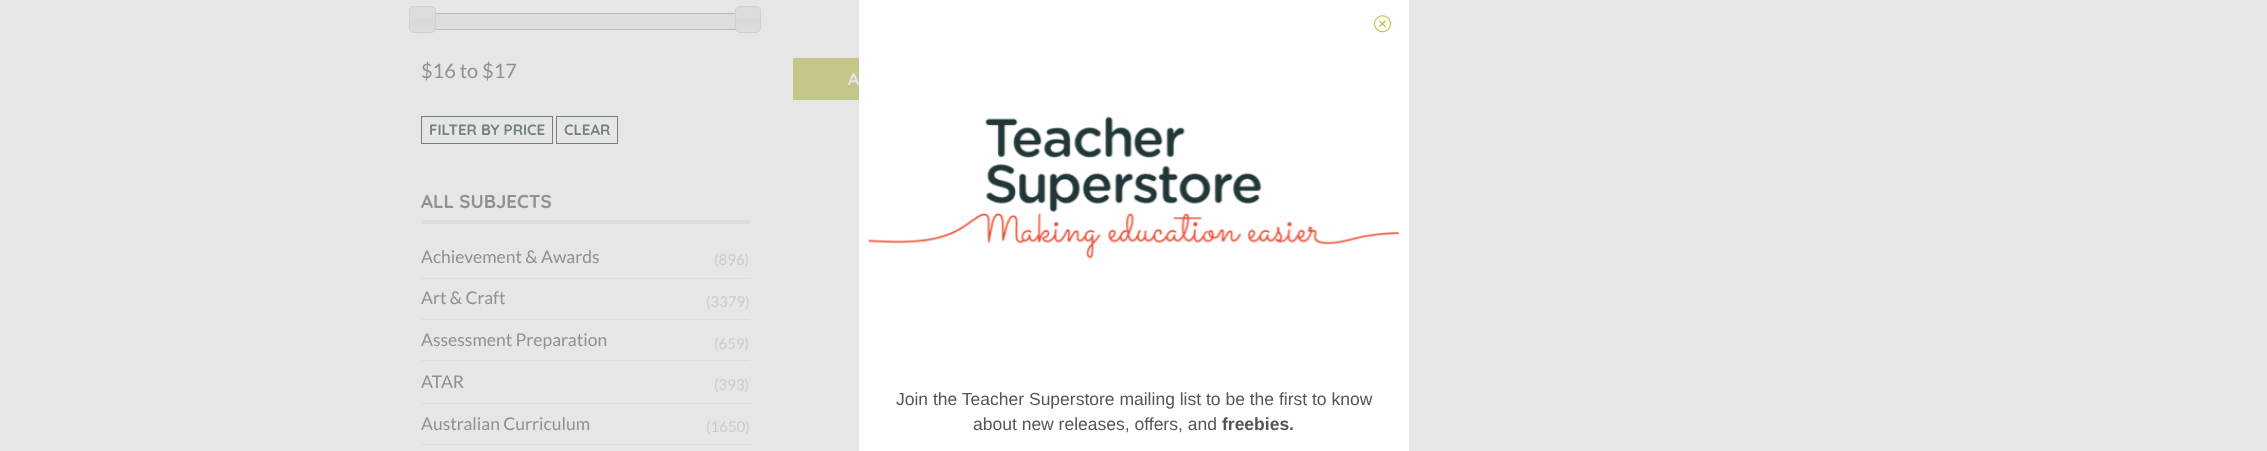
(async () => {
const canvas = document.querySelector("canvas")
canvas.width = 2267
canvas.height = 451
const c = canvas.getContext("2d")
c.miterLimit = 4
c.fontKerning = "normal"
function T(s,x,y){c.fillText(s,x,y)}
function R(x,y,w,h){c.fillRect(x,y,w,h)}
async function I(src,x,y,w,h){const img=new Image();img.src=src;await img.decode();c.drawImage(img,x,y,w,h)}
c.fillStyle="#e6e6e6"
R(0,0,2267,451)
c.strokeStyle="#bbb"
c.strokeRect(421.5,13.5,328,16)
c.fillStyle="#ddd"
R(435,14,301,15)
await I("1.png",409,6,28,26)
c.beginPath()
c.roundRect(409.5,6.5,26,26,4.5)
c.strokeStyle="#d0d0d0"
c.stroke()
await I("2.png",735,6,26,26)
c.beginPath()
c.roundRect(735.5,6.5,25,26,4.5)
c.stroke()
c.font="20px Lato"
c.fillStyle="#919191"
T("$16 to $17",421,78)
c.strokeStyle="#748181"
c.strokeRect(421.5,116.5,131,27)
c.font="bold 15px Quicksand"
c.fillStyle="#748181"
T("FILTER BY PRICE",429,135)
c.strokeRect(556.5,116.5,61,27)
T("CLEAR",564,135)
c.fillStyle="#ddd"
R(421,220,329,4)
c.font="bold 18.75px Quicksand"
c.fillStyle="#919191"
T("ALL SUBJECTS",421,208)
c.fillStyle="#ddd"
R(421,278,329,1)
c.font="17.5px Lato"
c.fillStyle="#919191"
T("Achievement & Awards",421,263)
c.font="15px Lato"
c.fillStyle="#ccc"
T("(896)",714,265)
c.fillStyle="#ddd"
R(421,319,329,1)
c.font="17.5px Lato"
c.fillStyle="#919191"
T("Art & Craft",421,304)
c.font="15px Lato"
c.fillStyle="#ccc"
T("(3379)",706,307)
c.fillStyle="#ddd"
R(421,360,329,1)
c.font="17.5px Lato"
c.fillStyle="#919191"
T("Assessment Preparation",421,346)
c.font="15px Lato"
c.fillStyle="#ccc"
T("(659)",714,349)
c.fillStyle="#ddd"
R(421,403,329,1)
c.font="17.5px Lato"
c.fillStyle="#919191"
T("ATAR",421,388)
c.font="15px Lato"
c.fillStyle="#ccc"
T("(393)",714,390)
c.fillStyle="#ddd"
R(421,444,329,1)
c.font="17.5px Lato"
c.fillStyle="#919191"
T("Australian Curriculum",421,430)
c.font="15px Lato"
c.fillStyle="#ccc"
T("(1650)",706,432)
c.fillStyle="#c4c68a"
R(793,58,66,42)
c.font="bold 17.5px Quicksand"
c.fillStyle="#e6e6e6"
T("A",848,85)
c.fillStyle="#fff"
R(859,0,550,451)
await I("3.png",1374,15,17,18)
await I("4.png",868,116,531,143)
c.font="17.5px Liberation Sans"
c.fillStyle="#555"
T("Join the Teacher Superstore mailing list to be the first to know",896,405)
T("about new releases, offers, and",973,430)
c.font="bold 17.5px Liberation Sans"
T("freebies.",1222,430)
})()
